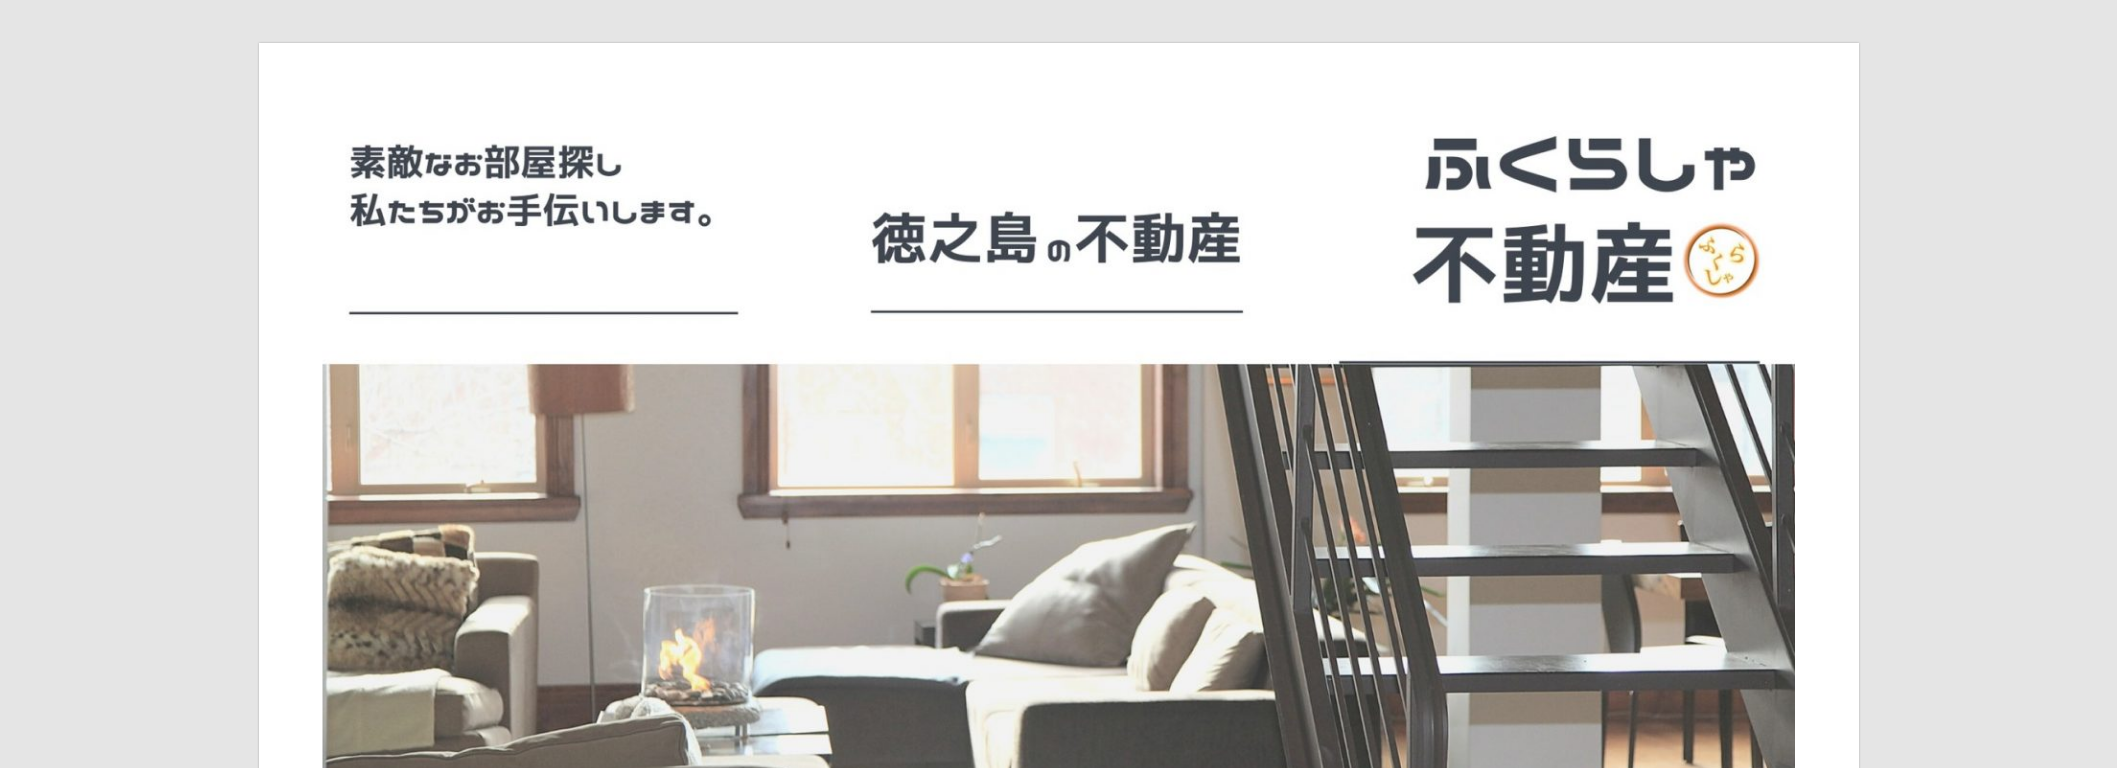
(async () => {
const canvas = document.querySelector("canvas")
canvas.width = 2117
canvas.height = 768
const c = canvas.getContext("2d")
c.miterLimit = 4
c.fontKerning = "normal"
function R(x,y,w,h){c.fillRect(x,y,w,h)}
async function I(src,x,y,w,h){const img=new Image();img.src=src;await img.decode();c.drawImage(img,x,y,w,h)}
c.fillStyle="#e5e5e5"
R(0,0,2117,768)
c.fillStyle="#aaa"
c.filter="blur(1px)"
c.beginPath()
c.rect(259,43,1600,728)
c.fill()
c.filter="none"
c.fillStyle="#fff"
R(259,43,1600,725)
await I("1.png",322,130,1473,638)
})()
